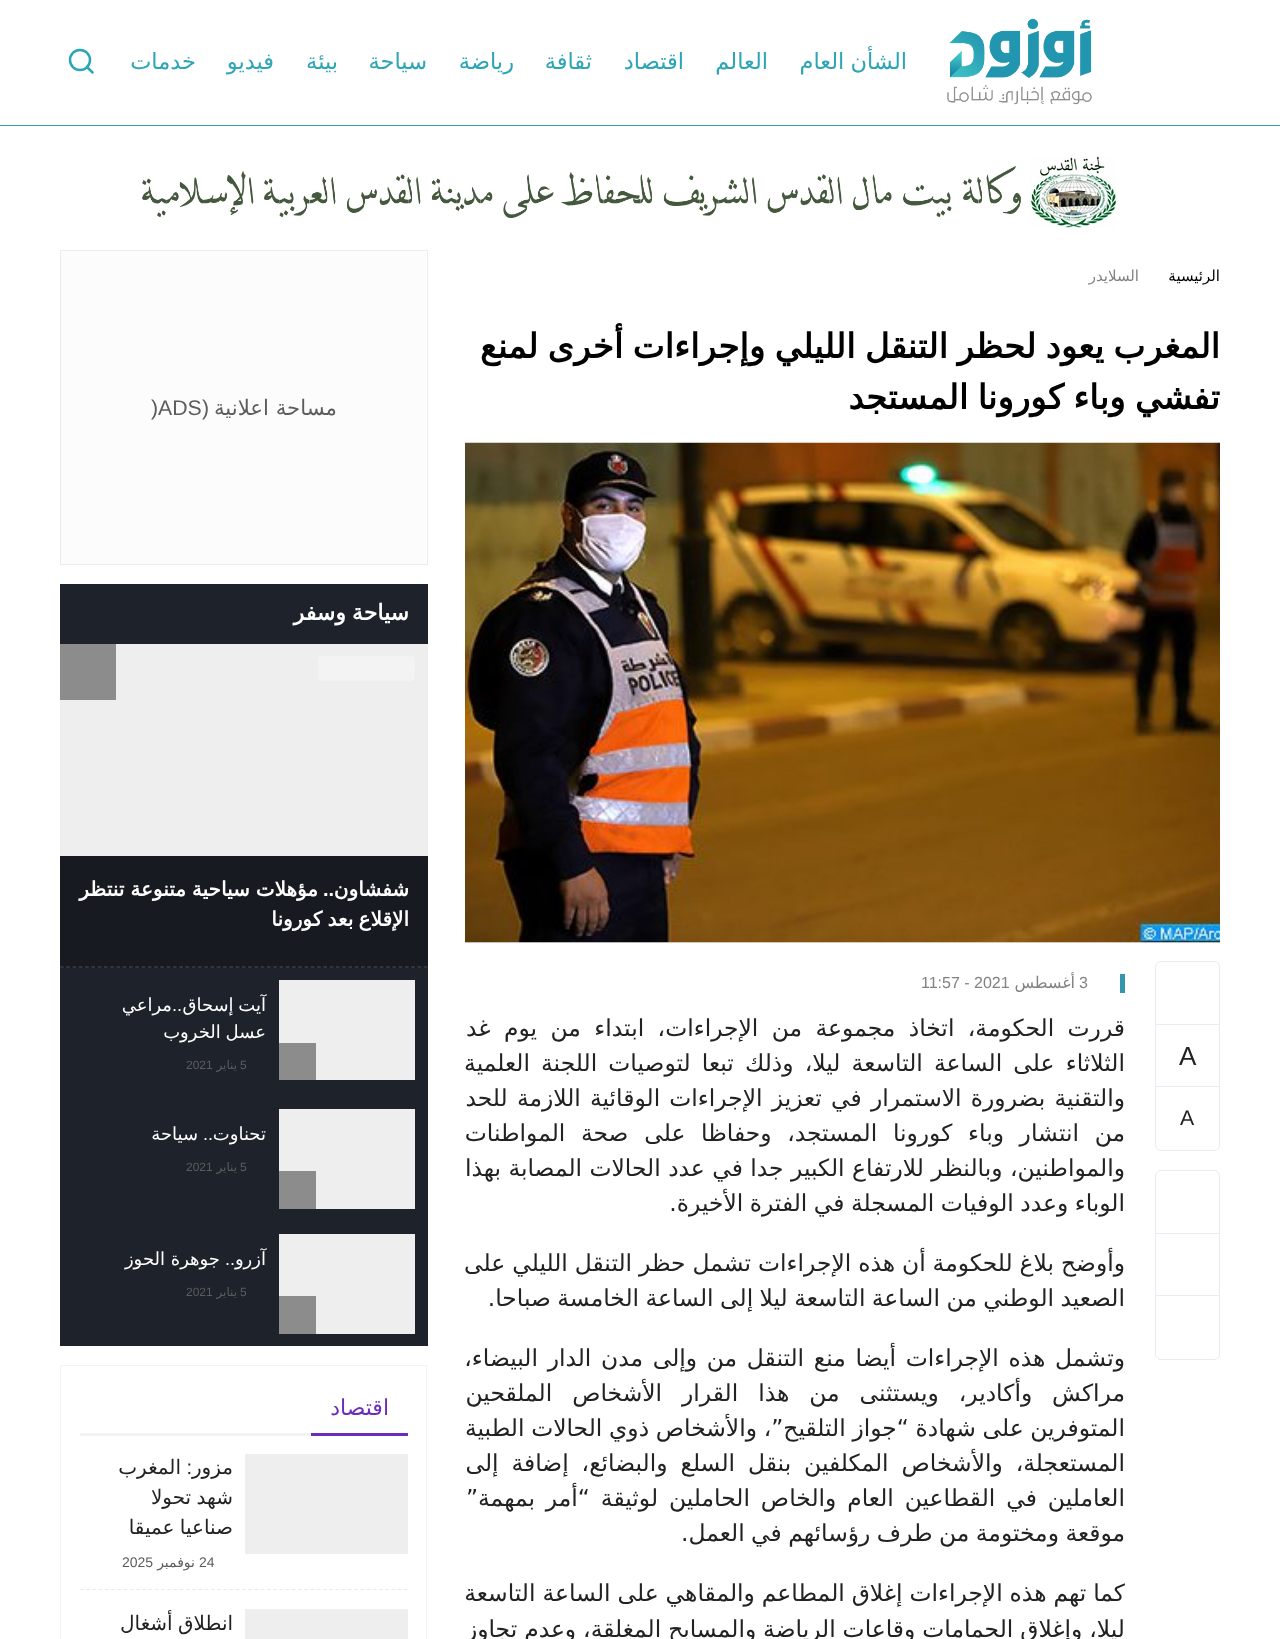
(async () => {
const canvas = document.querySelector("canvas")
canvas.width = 1280
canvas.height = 1639
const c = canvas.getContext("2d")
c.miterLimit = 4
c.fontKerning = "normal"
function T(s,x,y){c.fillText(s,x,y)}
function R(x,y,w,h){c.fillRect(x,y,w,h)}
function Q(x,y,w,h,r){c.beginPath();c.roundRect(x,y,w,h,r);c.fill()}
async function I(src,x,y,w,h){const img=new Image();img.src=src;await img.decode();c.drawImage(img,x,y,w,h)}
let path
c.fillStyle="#fff"
R(0,0,1280,1639)
c.fillStyle="#2da5b7"
R(0,125,1280,1)
await I("1.png",947,18,145,87)
c.wordSpacing="-1px"
c.direction="rtl"
c.font="22.5px DejaVu Sans"
T("الشأن العام",907,69)
c.wordSpacing="0px"
T("العالم",768,69)
T("اقتصاد",684,69)
T("ثقافة",592,69)
T("رياضة",514,69)
T("سياحة",427,69)
T("بيئة",338,69)
T("فيديو",274,69)
T("خدمات",196,69)
c.beginPath()
c.arc(80,60,10,0,7)
c.strokeStyle="#2da5b7"
c.lineWidth=2.5
c.stroke()
path = new Path2D("M92.5 72.5l-5.5-5.5")
c.lineCap="round"
c.lineJoin="round"
c.stroke(path)
await I("2.png",142,156,975,73)
c.font="15px DejaVu Sans"
c.fillStyle="#000"
T("الرئيسية",1220,281)
c.fillStyle="#828282"
T("السلايدر",1139,281)
c.wordSpacing="-1.5px"
c.font="bold 34px DejaVu Sans"
c.fillStyle="#000"
T("المغرب يعود لحظر التنقل الليلي وإجراءات أخرى لمنع",1220,358)
T("تفشي وباء كورونا المستجد",1220,409)
c.fillStyle="#eee"
R(465,942,755,1)
await I("3.png",465,442,755,501)
c.beginPath()
c.roundRect(1155.5,961.5,64,189,5.5)
c.strokeStyle="#e6ecf0"
c.lineWidth=1
c.lineJoin="miter"
c.stroke()
c.fillStyle="#e6ecf0"
R(1156,1024,63,1)
R(1156,1086,63,1)
c.wordSpacing="0px"
c.direction="ltr"
c.font="26px Liberation Sans"
c.fillStyle="#222"
T("A",1179,1065)
c.font="21.25px Liberation Sans"
T("A",1180,1125)
c.beginPath()
c.roundRect(1155.5,1170.5,64,189,5.5)
c.stroke()
c.fillStyle="#e6ecf0"
R(1156,1233,63,1)
R(1156,1295,63,1)
c.fillStyle="#3396ad"
R(1120,974,5,19)
c.font="16px Liberation Sans"
c.fillStyle="#828282"
T("3",1079,988)
c.direction="rtl"
c.font="16px DejaVu Sans"
T("أغسطس",1075,988)
c.direction="ltr"
c.font="16px Liberation Sans"
T("11:57 - 2021",921,988)
c.wordSpacing="6px"
c.direction="rtl"
c.font="23.4px DejaVu Sans"
c.fillStyle="#222"
T("قررت الحكومة، اتخاذ مجموعة من الإجراءات، ابتداء من يوم غد",1125,1036)
c.wordSpacing="3.75px"
T("الثلاثاء على الساعة التاسعة ليلا، وذلك تبعا لتوصيات اللجنة العلمية",1125,1071)
c.wordSpacing="1.75px"
T("والتقنية بضرورة الاستمرار في تعزيز الإجراءات الوقائية اللازمة للحد",1125,1106)
c.wordSpacing="8.25px"
T("من انتشار وباء كورونا المستجد، وحفاظا على صحة المواطنات",1125,1141)
c.wordSpacing="0px"
T("والمواطنين، وبالنظر للارتفاع الكبير جدا في عدد الحالات المصابة بهذا",1125,1176)
c.wordSpacing="-1px"
T("الوباء وعدد الوفيات المسجلة في الفترة الأخيرة.",1125,1211)
c.wordSpacing="-0.5px"
T("وأوضح بلاغ للحكومة أن هذه الإجراءات تشمل حظر التنقل الليلي على",1125,1271)
c.wordSpacing="-1px"
T("الصعيد الوطني من الساعة التاسعة ليلا إلى الساعة الخامسة صباحا.",1125,1306)
c.wordSpacing="2.25px"
T("وتشمل هذه الإجراءات أيضا منع التنقل من وإلى مدن الدار البيضاء،",1125,1366)
c.wordSpacing="12.5px"
T("مراكش وأكادير، ويستثنى من هذا القرار الأشخاص الملقحين",1125,1401)
c.wordSpacing="-0.75px"
T("المتوفرين على شهادة “جواز التلقيح”، والأشخاص ذوي الحالات الطبية",1125,1436)
c.wordSpacing="5.5px"
T("المستعجلة، والأشخاص المكلفين بنقل السلع والبضائع، إضافة إلى",1125,1471)
c.wordSpacing="3.5px"
T("العاملين في القطاعين العام والخاص الحاملين لوثيقة “أمر بمهمة”",1125,1506)
c.wordSpacing="-1px"
T("موقعة ومختومة من طرف رؤسائهم في العمل.",1125,1541)
c.wordSpacing="-0.5px"
T("كما تهم هذه الإجراءات إغلاق المطاعم والمقاهي على الساعة التاسعة",1125,1601)
T("ليلا، وإغلاق الحمامات وقاعات الرياضة والمسابح المغلقة، وعدم تجاوز",1125,1637)
c.strokeRect(60.5,250.5,367,314)
c.fillStyle="#fcfcfc"
R(61,251,365,313)
c.wordSpacing="0px"
c.font="21.25px DejaVu Sans"
c.fillStyle="#5d5d5d"
T("مساحة اعلانية",337,415)
c.font="21.25px Liberation Sans"
T("(",209,415)
c.direction="ltr"
T(")ADS",151,415)
c.fillStyle="#1e222b"
R(60,584,368,762)
c.wordSpacing="-1px"
c.direction="rtl"
c.font="bold 22px DejaVu Sans"
c.fillStyle="#fff"
T("سياحة وسفر",409,620)
c.fillStyle="#171a20"
R(60,856,368,112)
path = new Path2D("M60 967h367.5")
c.strokeStyle="#4d4f54"
c.lineWidth=1.2
c.lineCap="butt"
c.setLineDash([3.75,2.52])
c.stroke(path)
c.fillStyle="#eee"
R(60,644,368,212)
c.fillStyle="#8c8c8c"
R(60,644,56,56)
c.fillStyle="#f3f3f3"
Q(318,656,97,25,4)
c.wordSpacing="0px"
c.font="bold 20px DejaVu Sans"
c.fillStyle="#fff"
T("شفشاون",409,896)
c.font="bold 20px Liberation Sans"
T("..",334,896)
c.wordSpacing="-0.5px"
c.font="bold 20px DejaVu Sans"
T("مؤهلات سياحية متنوعة تنتظر",318,896)
c.wordSpacing="-1px"
T("الإقلاع بعد كورونا",409,926)
c.fillStyle="#eee"
R(279,980,136,100)
c.fillStyle="#8c8c8c"
R(279,1043,37,37)
c.font="18px DejaVu Sans"
c.fillStyle="#fff"
T("آيت إسحاق",266,1011)
c.wordSpacing="0px"
c.font="18px Liberation Sans"
T("..",182,1011)
c.font="18px DejaVu Sans"
T("مراعي",172,1011)
c.wordSpacing="-1px"
T("عسل الخروب",266,1038)
c.wordSpacing="0px"
c.direction="ltr"
c.font="12px Liberation Sans"
c.fillStyle="#5d5d5d"
T("5",240,1069)
c.direction="rtl"
c.font="12px DejaVu Sans"
T("يناير",237,1069)
c.direction="ltr"
c.font="12px Liberation Sans"
T("2021",186,1069)
c.fillStyle="#eee"
R(279,1109,136,100)
c.fillStyle="#8c8c8c"
R(279,1171,37,38)
c.direction="rtl"
c.font="18px DejaVu Sans"
c.fillStyle="#fff"
T("تحناوت",266,1140)
c.font="18px Liberation Sans"
T("..",213,1140)
c.font="18px DejaVu Sans"
T("سياحة",198,1140)
c.direction="ltr"
c.font="12px Liberation Sans"
c.fillStyle="#5d5d5d"
T("5",240,1171)
c.direction="rtl"
c.font="12px DejaVu Sans"
T("يناير",237,1171)
c.direction="ltr"
c.font="12px Liberation Sans"
T("2021",186,1171)
c.fillStyle="#eee"
R(279,1234,136,100)
c.fillStyle="#8c8c8c"
R(279,1296,37,38)
c.direction="rtl"
c.font="18px Liberation Sans"
c.fillStyle="#fff"
T("..",235,1265)
c.font="18px DejaVu Sans"
T("آزرو",266,1265)
T("جوهرة الحوز",220,1265)
c.direction="ltr"
c.font="12px Liberation Sans"
c.fillStyle="#5d5d5d"
T("5",240,1296)
c.direction="rtl"
c.font="12px DejaVu Sans"
T("يناير",237,1296)
c.direction="ltr"
c.font="12px Liberation Sans"
T("2021",186,1296)
c.fillStyle="#f3f3f3"
R(60,1365,368,1)
R(426,1365,1,274)
R(60,1365,1,274)
R(80,1433,231,3)
c.fillStyle="#6c2eb9"
R(311,1433,97,3)
c.direction="rtl"
c.font="22px DejaVu Sans"
T("اقتصاد",389,1415)
path = new Path2D("M80 1589.5h327.5")
c.strokeStyle="#e6ecf0"
c.setLineDash([3.75,2.48])
c.stroke(path)
c.fillStyle="#eee"
R(245,1454,163,100)
c.font="20px DejaVu Sans"
c.fillStyle="#222"
T("مزور",233,1474)
c.font="20px Liberation Sans"
T(":",192,1474)
c.font="20px DejaVu Sans"
T("المغرب",181,1474)
c.wordSpacing="-1px"
T("شهد تحولا",233,1504)
T("صناعيا عميقا",233,1534)
c.wordSpacing="0px"
c.direction="ltr"
c.font="14px Liberation Sans"
c.fillStyle="#5d5d5d"
T("24",199,1567)
c.direction="rtl"
c.font="14px DejaVu Sans"
T("نوفمبر",195,1567)
c.direction="ltr"
c.font="14px Liberation Sans"
T("2025",122,1567)
c.fillStyle="#eee"
R(245,1609,163,30)
c.wordSpacing="-1px"
c.direction="rtl"
c.font="20px DejaVu Sans"
c.fillStyle="#222"
T("انطلاق أشغال",233,1630)
})()
